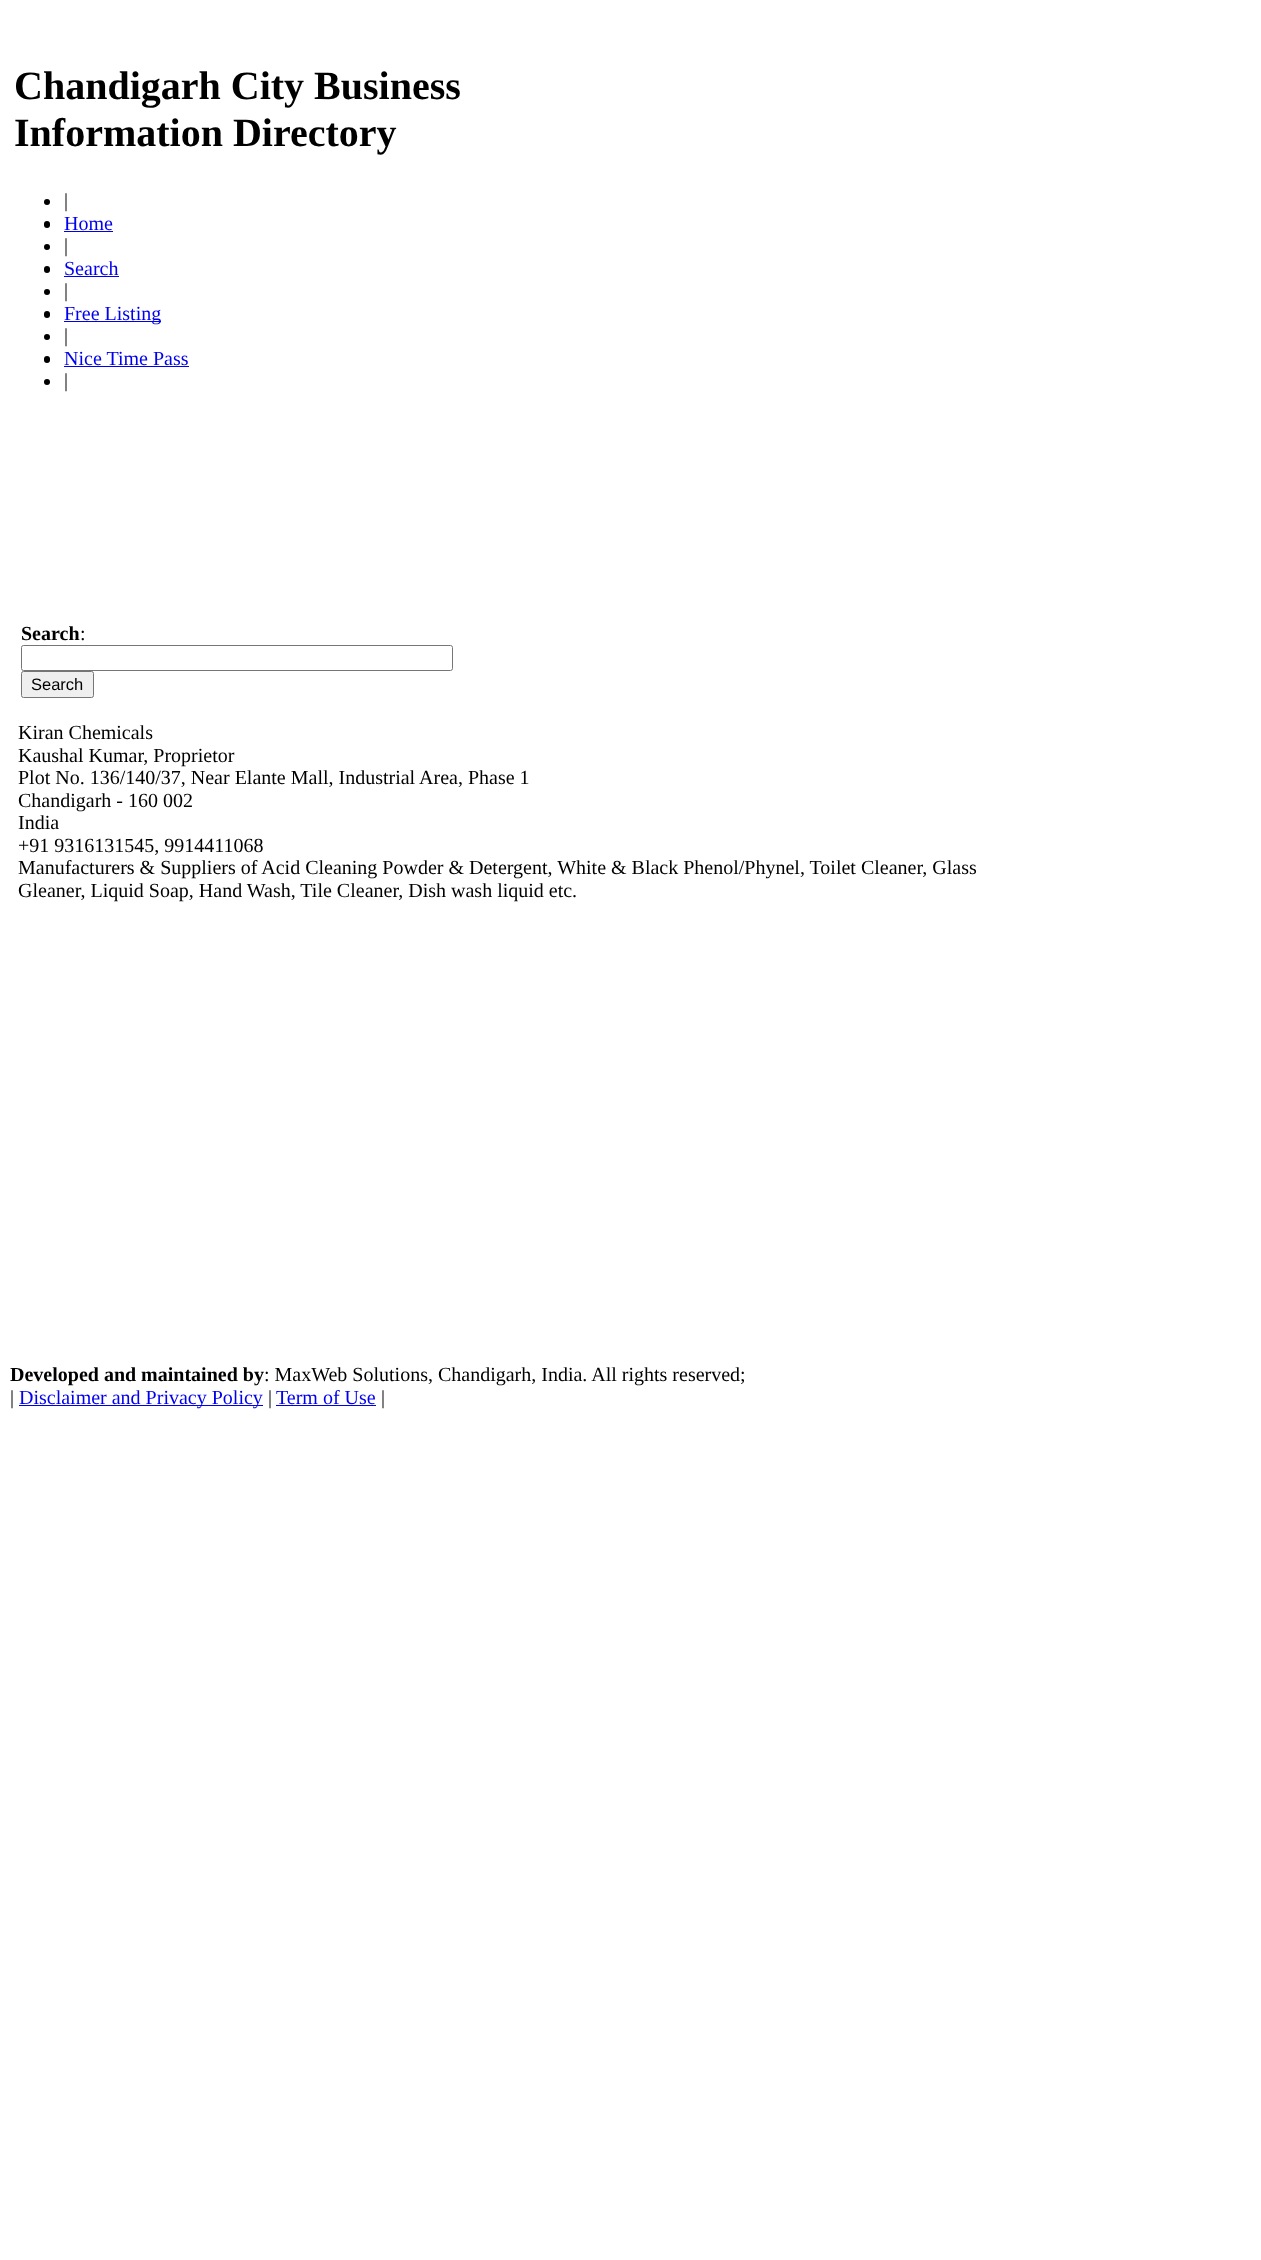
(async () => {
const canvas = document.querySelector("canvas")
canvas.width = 1261
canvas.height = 2260
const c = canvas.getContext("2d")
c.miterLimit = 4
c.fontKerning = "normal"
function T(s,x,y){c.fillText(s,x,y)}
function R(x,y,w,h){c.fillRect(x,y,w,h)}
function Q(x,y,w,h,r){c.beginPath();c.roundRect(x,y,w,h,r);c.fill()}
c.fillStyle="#fff"
R(0,0,1261,2260)
c.font="bold 40px Liberation Serif"
c.fillStyle="#000"
T("Chandigarh City Business",14,99)
T("Information Directory",14,146)
c.beginPath()
c.arc(47,202,3,0,7)
c.fill()
c.font="20px Liberation Serif"
T("|",64,207)
Q(44,221,6,7,3)
c.fillStyle="#00e"
T("Home",64,230)
R(64,231,49,1)
c.fillStyle="#000"
c.beginPath()
c.arc(47,247,3,0,7)
c.fill()
T("|",64,252)
Q(44,266,6,7,3)
c.fillStyle="#00e"
T("Search",64,275)
R(64,276,55,1)
c.fillStyle="#000"
c.beginPath()
c.arc(47,292,3,0,7)
c.fill()
T("|",64,297)
Q(44,311,6,7,3)
c.fillStyle="#00e"
R(64,321,97,1)
T("Free Listing",64,320)
c.fillStyle="#000"
c.beginPath()
c.arc(47,337,3,0,7)
c.fill()
T("|",64,342)
Q(44,356,6,7,3)
c.fillStyle="#00e"
T("Nice Time Pass",64,365)
R(64,366,125,1)
c.fillStyle="#000"
c.beginPath()
c.arc(47,382,3,0,7)
c.fill()
T("|",64,387)
c.font="bold 20px Liberation Serif"
T("Search",21,640)
c.font="20px Liberation Serif"
T(":",80,640)
c.beginPath()
c.roundRect(21.5,645.5,431,25,2)
c.strokeStyle="#767676"
c.stroke()
c.fillStyle="#efefef"
c.beginPath()
c.roundRect(21.5,671.5,72,26,2)
c.fill()
c.stroke()
c.font="16.5px Liberation Sans"
c.fillStyle="#000"
T("Search",31,690)
c.font="20px Liberation Serif"
T("Kiran Chemicals",18,739)
T("Kaushal Kumar, Proprietor",18,762)
T("Plot No. 136/140/37, Near Elante Mall, Industrial Area, Phase 1",18,784)
T("Chandigarh - 160 002",18,807)
T("India",18,829)
T("+91 9316131545, 9914411068",18,852)
T("Manufacturers & Suppliers of Acid Cleaning Powder & Detergent, White & Black Phenol/Phynel, Toilet Cleaner, Glass",18,874)
T("Gleaner, Liquid Soap, Hand Wash, Tile Cleaner, Dish wash liquid etc.",18,897)
c.font="bold 20px Liberation Serif"
T("Developed and maintained by",10,1381)
c.font="20px Liberation Serif"
T(": MaxWeb Solutions, Chandigarh, India. All rights reserved;",264,1381)
T("|",10,1404)
c.fillStyle="#00e"
R(19,1405,244,1)
T("Disclaimer and Privacy Policy",19,1404)
c.fillStyle="#000"
T("|",268,1404)
c.fillStyle="#00e"
T("Term of Use",276,1404)
R(276,1405,100,1)
c.fillStyle="#000"
T("|",381,1404)
})()
